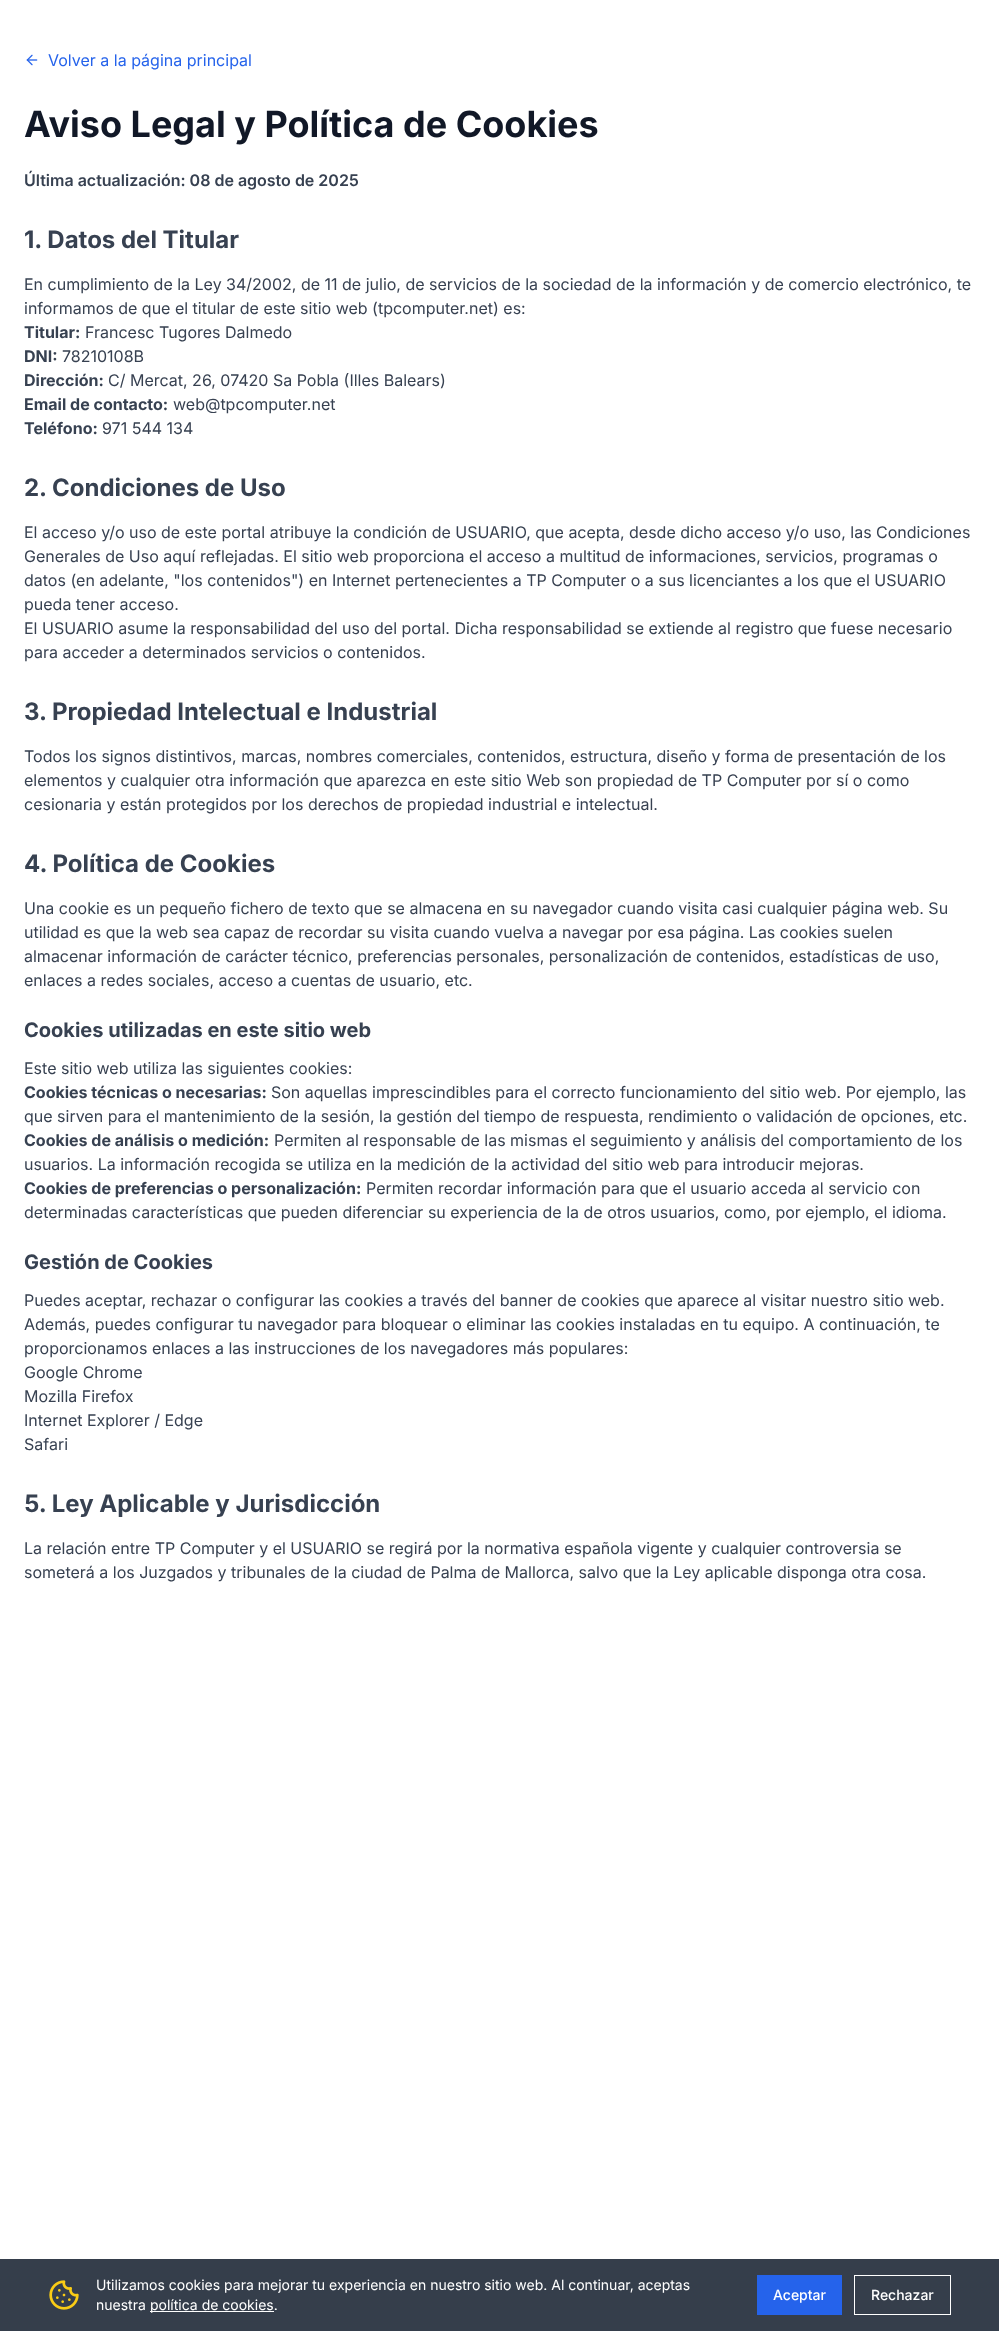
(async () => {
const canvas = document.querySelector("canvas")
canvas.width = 999
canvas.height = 2331
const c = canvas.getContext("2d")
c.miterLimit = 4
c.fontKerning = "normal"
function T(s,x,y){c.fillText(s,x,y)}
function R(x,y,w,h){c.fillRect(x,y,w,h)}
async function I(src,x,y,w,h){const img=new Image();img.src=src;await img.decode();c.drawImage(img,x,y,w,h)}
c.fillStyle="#fff"
R(0,0,999,2331)
await I("1.png",26,54,12,12)
c.font="16px Inter"
c.fillStyle="#2563eb"
T("Volver a la página principal",48,66)
c.font="bold 36px Inter"
c.fillStyle="#111827"
T("Aviso Legal y Política de Cookies",24,137)
c.font="600 16px Inter"
c.fillStyle="#374151"
T("Última actualización: 08 de agosto de 2025",24,186)
c.font="bold 24px Inter"
T("1. Datos del Titular",24,248)
c.font="16px Inter"
T("En cumplimiento de la Ley 34/2002, de 11 de julio, de servicios de la sociedad de la información y de comercio electrónico, te",24,290)
T("informamos de que el titular de este sitio web (tpcomputer.net) es:",24,314)
c.font="bold 16px Inter"
T("Titular:",24,338)
c.font="16px Inter"
T("Francesc Tugores Dalmedo",85,338)
c.font="bold 16px Inter"
T("DNI:",24,362)
c.font="16px Inter"
T("78210108B",62,362)
c.font="bold 16px Inter"
T("Dirección:",24,386)
c.font="16px Inter"
T("C/ Mercat, 26, 07420 Sa Pobla (Illes Balears)",108,386)
c.font="bold 16px Inter"
T("Email de contacto:",24,410)
c.font="16px Inter"
T("web@tpcomputer.net",173,410)
c.font="bold 16px Inter"
T("Teléfono:",24,434)
c.font="16px Inter"
T("971 544 134",102,434)
c.font="bold 24px Inter"
T("2. Condiciones de Uso",24,496)
c.font="16px Inter"
T("El acceso y/o uso de este portal atribuye la condición de USUARIO, que acepta, desde dicho acceso y/o uso, las Condiciones",24,538)
T("Generales de Uso aquí reflejadas. El sitio web proporciona el acceso a multitud de informaciones, servicios, programas o",24,562)
T("datos (en adelante, \"los contenidos\") en Internet pertenecientes a TP Computer o a sus licenciantes a los que el USUARIO",24,586)
T("pueda tener acceso.",24,610)
T("El USUARIO asume la responsabilidad del uso del portal. Dicha responsabilidad se extiende al registro que fuese necesario",24,634)
T("para acceder a determinados servicios o contenidos.",24,658)
c.font="bold 24px Inter"
T("3. Propiedad Intelectual e Industrial",24,720)
c.font="16px Inter"
T("Todos los signos distintivos, marcas, nombres comerciales, contenidos, estructura, diseño y forma de presentación de los",24,762)
T("elementos y cualquier otra información que aparezca en este sitio Web son propiedad de TP Computer por sí o como",24,786)
T("cesionaria y están protegidos por los derechos de propiedad industrial e intelectual.",24,810)
c.font="bold 24px Inter"
T("4. Política de Cookies",24,872)
c.font="16px Inter"
T("Una cookie es un pequeño fichero de texto que se almacena en su navegador cuando visita casi cualquier página web. Su",24,914)
T("utilidad es que la web sea capaz de recordar su visita cuando vuelva a navegar por esa página. Las cookies suelen",24,938)
T("almacenar información de carácter técnico, preferencias personales, personalización de contenidos, estadísticas de uso,",24,962)
T("enlaces a redes sociales, acceso a cuentas de usuario, etc.",24,986)
c.font="bold 20px Inter"
T("Cookies utilizadas en este sitio web",24,1037)
c.font="16px Inter"
T("Este sitio web utiliza las siguientes cookies:",24,1074)
c.font="bold 16px Inter"
T("Cookies técnicas o necesarias:",24,1098)
c.font="16px Inter"
T("Son aquellas imprescindibles para el correcto funcionamiento del sitio web. Por ejemplo, las",271,1098)
T("que sirven para el mantenimiento de la sesión, la gestión del tiempo de respuesta, rendimiento o validación de opciones, etc.",24,1122)
c.font="bold 16px Inter"
T("Cookies de análisis o medición:",24,1146)
c.font="16px Inter"
T("Permiten al responsable de las mismas el seguimiento y análisis del comportamiento de los",274,1146)
T("usuarios. La información recogida se utiliza en la medición de la actividad del sitio web para introducir mejoras.",24,1170)
c.font="bold 16px Inter"
T("Cookies de preferencias o personalización:",24,1194)
c.font="16px Inter"
T("Permiten recordar información para que el usuario acceda al servicio con",366,1194)
T("determinadas características que pueden diferenciar su experiencia de la de otros usuarios, como, por ejemplo, el idioma.",24,1218)
c.font="bold 20px Inter"
T("Gestión de Cookies",24,1269)
c.font="16px Inter"
T("Puedes aceptar, rechazar o configurar las cookies a través del banner de cookies que aparece al visitar nuestro sitio web.",24,1306)
T("Además, puedes configurar tu navegador para bloquear o eliminar las cookies instaladas en tu equipo. A continuación, te",24,1330)
T("proporcionamos enlaces a las instrucciones de los navegadores más populares:",24,1354)
T("Google Chrome",24,1378)
T("Mozilla Firefox",24,1402)
T("Internet Explorer / Edge",24,1426)
T("Safari",24,1450)
c.font="bold 24px Inter"
T("5. Ley Aplicable y Jurisdicción",24,1512)
c.font="16px Inter"
T("La relación entre TP Computer y el USUARIO se regirá por la normativa española vigente y cualquier controversia se",24,1554)
T("someterá a los Juzgados y tribunales de la ciudad de Palma de Mallorca, salvo que la Ley aplicable disponga otra cosa.",24,1578)
c.fillStyle="#353e4b"
R(0,2259,999,72)
await I("2.png",49,2280,30,30)
c.font="14px Inter"
c.fillStyle="#fff"
T("Utilizamos cookies para mejorar tu experiencia en nuestro sitio web. Al continuar, aceptas",96,2290)
T("nuestra",96,2310)
R(150,2311,124,1)
T("política de cookies.",150,2310)
c.fillStyle="#2563eb"
R(757,2275,85,40)
c.font="500 14px Inter"
c.fillStyle="#fff"
T("Aceptar",773,2300)
c.strokeStyle="#fff"
c.strokeRect(854.5,2275.5,96,39)
T("Rechazar",871,2300)
})()
